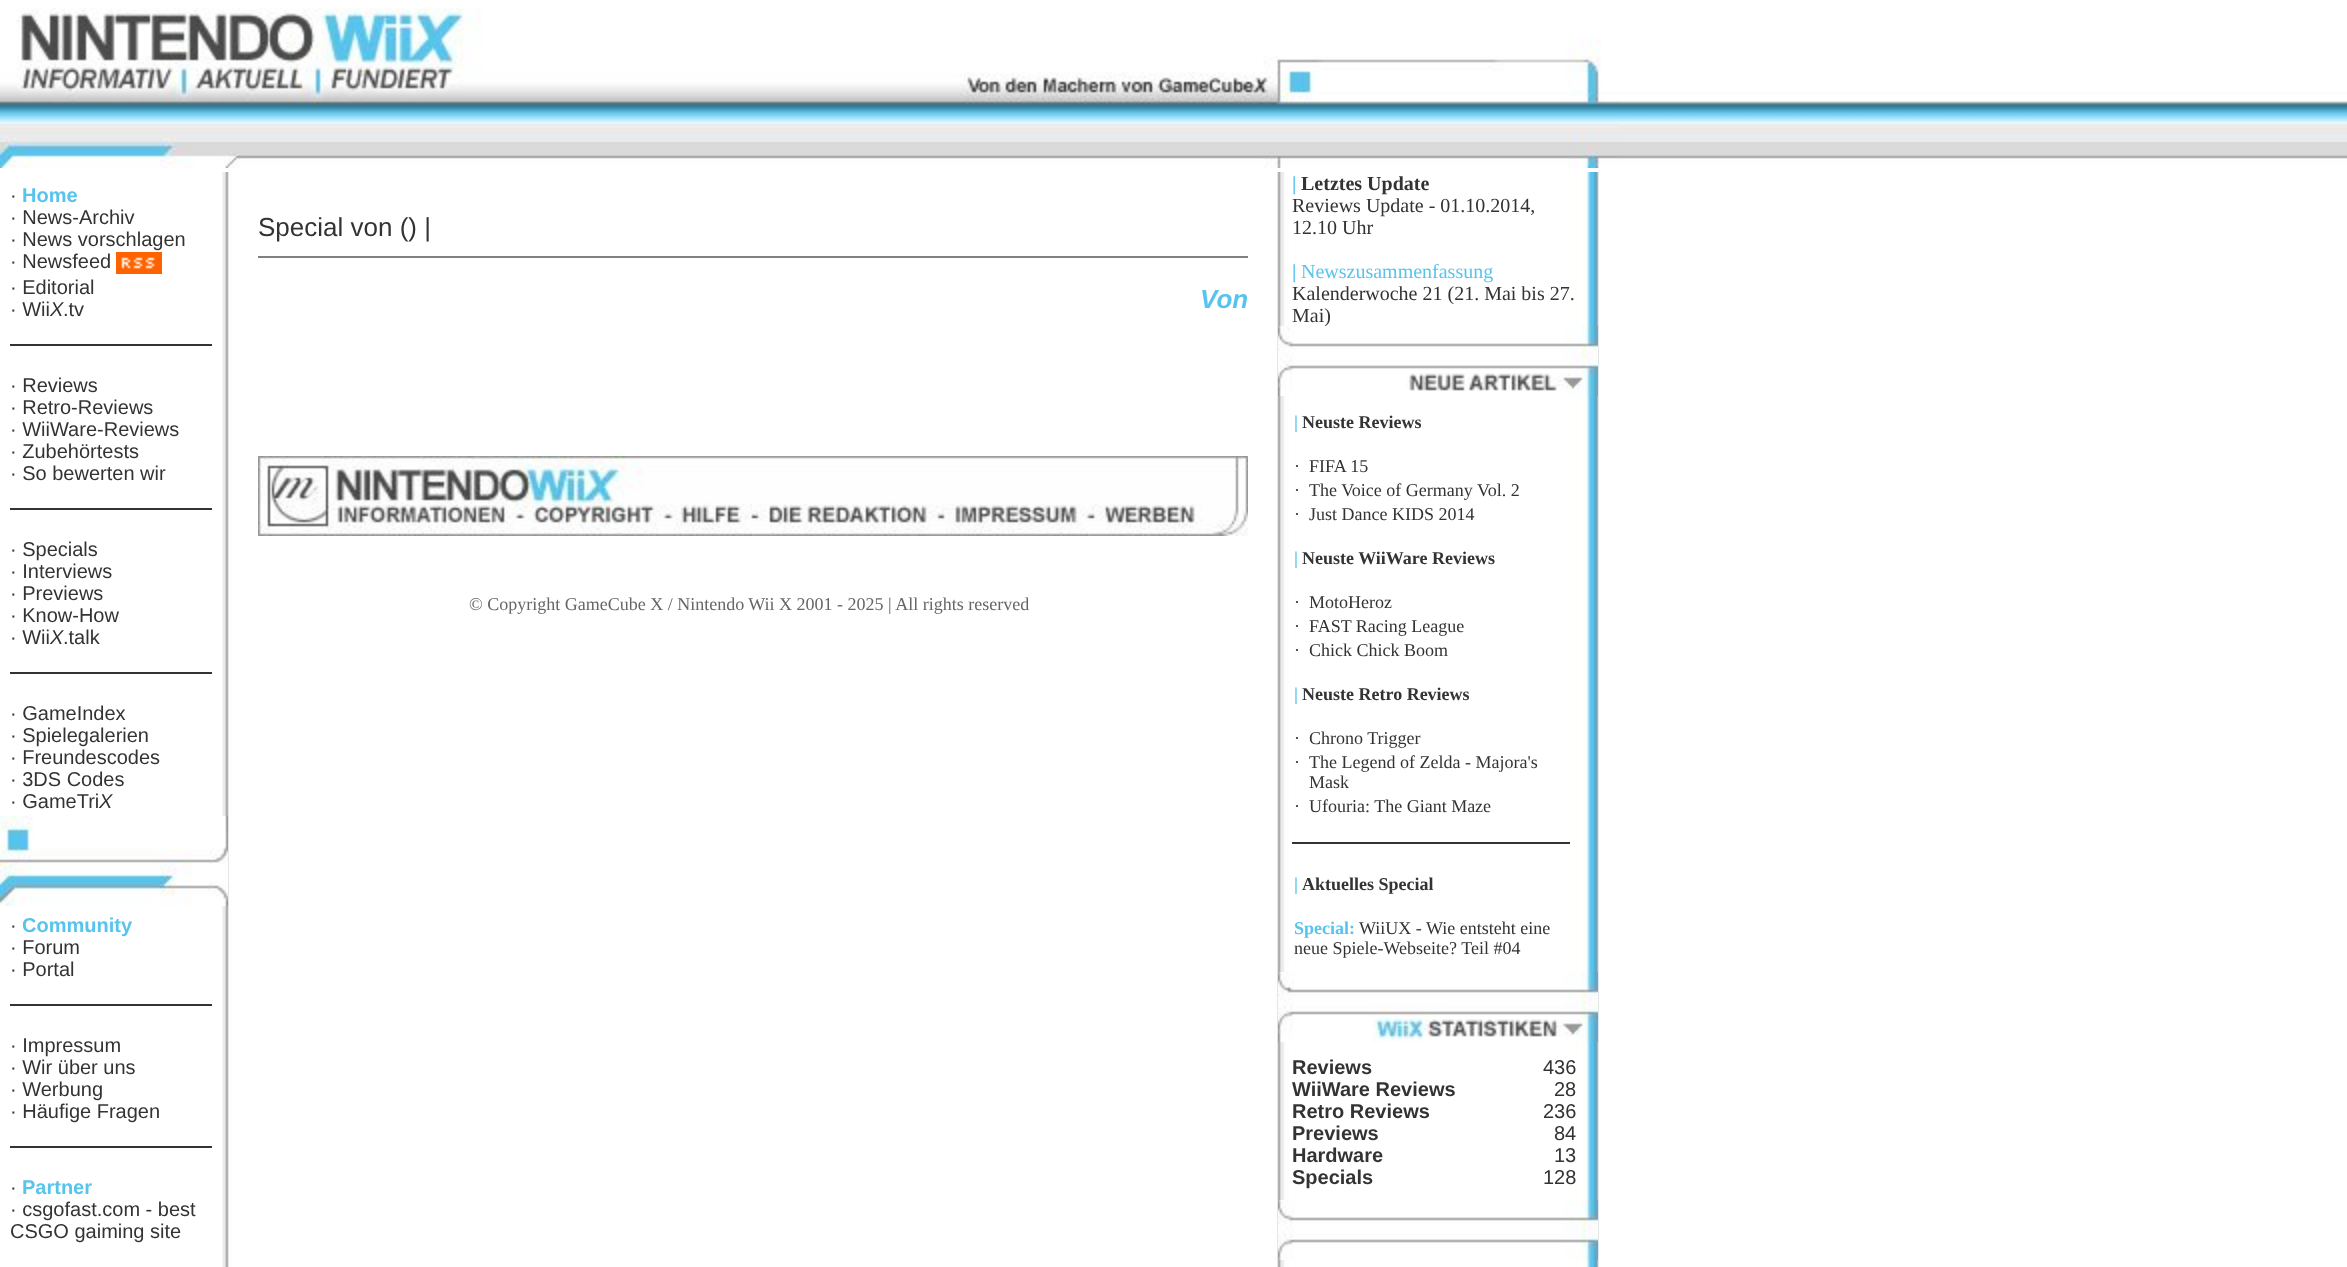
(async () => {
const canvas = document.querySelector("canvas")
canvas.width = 2347
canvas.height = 1267
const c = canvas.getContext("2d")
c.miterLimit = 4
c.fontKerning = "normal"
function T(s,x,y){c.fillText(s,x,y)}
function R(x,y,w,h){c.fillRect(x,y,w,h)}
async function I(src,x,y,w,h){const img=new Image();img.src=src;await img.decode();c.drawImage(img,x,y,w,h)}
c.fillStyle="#fff"
R(0,0,2347,1267)
await I("1.png",222,172,1377,1095)
await I("2.png",0,0,2347,172)
await I("3.png",0,7,1620,161)
c.font="20px Liberation Sans"
c.fillStyle="#333"
T("·",10,202)
c.font="bold 20px Liberation Sans"
c.fillStyle="#57c4ed"
T("Home",22,202)
c.font="20px Liberation Sans"
c.fillStyle="#333"
T("· News-Archiv",10,224)
T("· News vorschlagen",10,246)
T("· Newsfeed",10,268)
await I("4.png",116,252,46,22)
T("· Editorial",10,294)
T("· Wii",10,316)
c.font="italic 20px Liberation Sans"
T("X",50,316)
c.font="20px Liberation Sans"
T(".tv",63,316)
R(10,344,202,2)
T("· Reviews",10,392)
T("· Retro-Reviews",10,414)
T("· WiiWare-Reviews",10,436)
T("· Zubehörtests",10,458)
T("· So bewerten wir",10,480)
R(10,508,202,2)
T("· Specials",10,556)
T("· Interviews",10,578)
T("· Previews",10,600)
T("· Know-How",10,622)
T("· Wii",10,644)
c.font="italic 20px Liberation Sans"
T("X",50,644)
c.font="20px Liberation Sans"
T(".talk",63,644)
R(10,672,202,2)
T("· GameIndex",10,720)
T("· Spielegalerien",10,742)
T("· Freundescodes",10,764)
T("· 3DS Codes",10,786)
T("· GameTri",10,808)
c.font="italic 20px Liberation Sans"
T("X",99,808)
await I("5.png",0,816,228,90)
c.font="20px Liberation Sans"
T("·",10,932)
c.font="bold 20px Liberation Sans"
c.fillStyle="#57c4ed"
T("Community",22,932)
c.font="20px Liberation Sans"
c.fillStyle="#333"
T("· Forum",10,954)
T("· Portal",10,976)
R(10,1004,202,2)
T("· Impressum",10,1052)
T("· Wir über uns",10,1074)
T("· Werbung",10,1096)
T("· Häufige Fragen",10,1118)
R(10,1146,202,2)
T("·",10,1194)
c.font="bold 20px Liberation Sans"
c.fillStyle="#57c4ed"
T("Partner",22,1194)
c.font="20px Liberation Sans"
c.fillStyle="#333"
T("· csgofast.com - best",10,1216)
T("CSGO gaiming site",10,1238)
c.font="26px Liberation Sans"
T("Special von () |",258,236)
c.fillStyle="#808080"
R(258,256,990,2)
c.font="italic bold 26px Liberation Sans"
c.fillStyle="#57c4ed"
T("Von",1200,308)
await I("6.png",258,456,990,80)
c.font="18px Liberation Serif"
c.fillStyle="#666"
T("© Copyright GameCube X / Nintendo Wii X 2001 - 2025 | All rights reserved",469,610)
c.font="bold 20px Liberation Serif"
c.fillStyle="#57c4ed"
T("|",1292,190)
c.fillStyle="#333"
T("Letztes Update",1301,190)
c.font="20px Liberation Serif"
T("Reviews Update - 01.10.2014,",1292,212)
T("12.10 Uhr",1292,234)
c.font="bold 20px Liberation Serif"
c.fillStyle="#57c4ed"
T("|",1292,278)
c.font="20px Liberation Serif"
T("Newszusammenfassung",1301,278)
c.fillStyle="#333"
T("Kalenderwoche 21 (21. Mai bis 27.",1292,300)
T("Mai)",1292,322)
await I("7.png",1278,326,320,70)
c.font="bold 18px Liberation Serif"
c.fillStyle="#57c4ed"
T("|",1294,428)
c.fillStyle="#333"
T("Neuste Reviews",1302,428)
c.font="18px Liberation Serif"
T("·",1294,472)
T("FIFA 15",1309,472)
T("·",1294,496)
T("The Voice of Germany Vol. 2",1309,496)
T("·",1294,520)
T("Just Dance KIDS 2014",1309,520)
c.font="bold 18px Liberation Serif"
c.fillStyle="#57c4ed"
T("|",1294,564)
c.fillStyle="#333"
T("Neuste WiiWare Reviews",1302,564)
c.font="18px Liberation Serif"
T("·",1294,608)
T("MotoHeroz",1309,608)
T("·",1294,632)
T("FAST Racing League",1309,632)
T("·",1294,656)
T("Chick Chick Boom",1309,656)
c.font="bold 18px Liberation Serif"
c.fillStyle="#57c4ed"
T("|",1294,700)
c.fillStyle="#333"
T("Neuste Retro Reviews",1302,700)
c.font="18px Liberation Serif"
T("·",1294,744)
T("Chrono Trigger",1309,744)
T("·",1294,768)
T("The Legend of Zelda - Majora's",1309,768)
T("Mask",1309,788)
T("·",1294,812)
T("Ufouria: The Giant Maze",1309,812)
R(1292,842,278,2)
c.font="bold 18px Liberation Serif"
c.fillStyle="#57c4ed"
T("|",1294,890)
c.fillStyle="#333"
T("Aktuelles Special",1302,890)
c.fillStyle="#57c4ed"
T("Special:",1294,934)
c.font="18px Liberation Serif"
c.fillStyle="#333"
T("WiiUX - Wie entsteht eine",1359,934)
T("neue Spiele-Webseite? Teil #04",1294,954)
await I("8.png",1278,972,320,70)
c.font="bold 20px Liberation Sans"
T("Reviews",1292,1074)
c.font="20px Liberation Sans"
T("436",1543,1074)
c.font="bold 20px Liberation Sans"
T("WiiWare Reviews",1292,1096)
c.font="20px Liberation Sans"
T("28",1554,1096)
c.font="bold 20px Liberation Sans"
T("Retro Reviews",1292,1118)
c.font="20px Liberation Sans"
T("236",1543,1118)
c.font="bold 20px Liberation Sans"
T("Previews",1292,1140)
c.font="20px Liberation Sans"
T("84",1554,1140)
c.font="bold 20px Liberation Sans"
T("Hardware",1292,1162)
c.font="20px Liberation Sans"
T("13",1554,1162)
c.font="bold 20px Liberation Sans"
T("Specials",1292,1184)
c.font="20px Liberation Sans"
T("128",1543,1184)
await I("9.png",1278,1200,320,60)
})()
